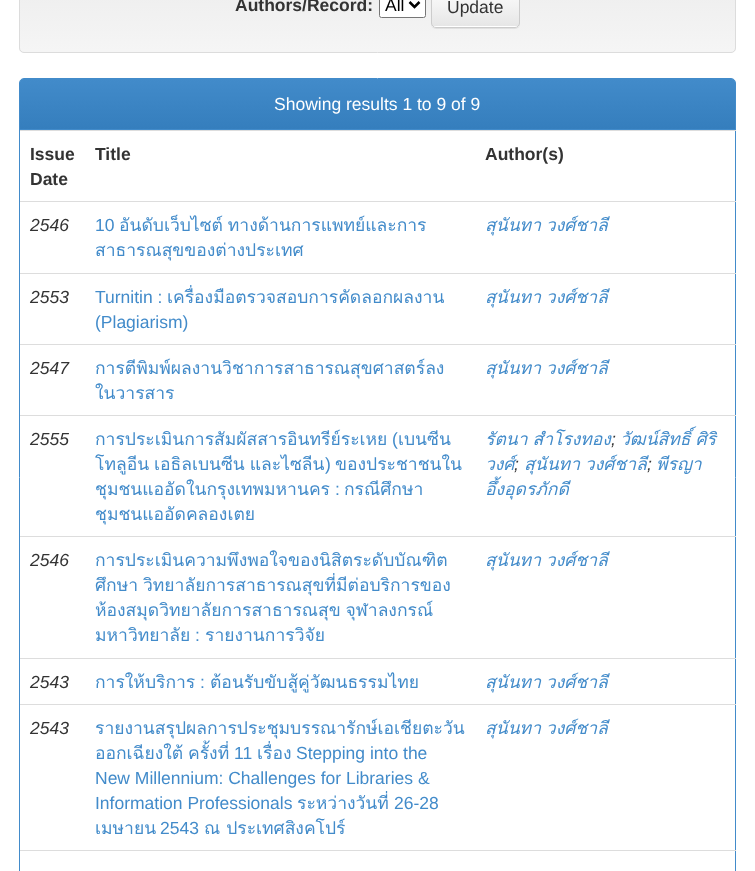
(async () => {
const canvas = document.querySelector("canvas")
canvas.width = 755
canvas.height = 871
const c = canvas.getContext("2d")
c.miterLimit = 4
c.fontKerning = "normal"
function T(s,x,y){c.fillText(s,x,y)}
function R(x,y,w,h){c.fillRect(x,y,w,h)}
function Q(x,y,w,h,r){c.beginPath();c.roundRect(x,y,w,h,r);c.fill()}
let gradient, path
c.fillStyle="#fff"
R(0,0,755,871)
c.fillStyle="#f5f5f5"
Q(19,-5,717,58,5)
c.save()
c.beginPath()
c.roundRect(19,-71,717,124,5)
c.clip()
gradient = c.createLinearGradient(378,-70,378,51)
gradient.addColorStop(0,"#e8e8e8")
gradient.addColorStop(1,"#f5f5f5")
c.fillStyle = gradient
R(19,0,717,51)
c.restore()
c.beginPath()
c.roundRect(19.5,-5.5,716,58,4.5)
c.strokeStyle="#dcdcdc"
c.stroke()
c.font="bold 17.5px Liberation Sans"
c.fillStyle="#333"
T("Authors/Record:",235,11)
c.fillStyle="#fff"
c.beginPath()
c.roundRect(379.5,-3.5,46,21,2)
c.fill()
c.strokeStyle="#767676"
c.stroke()
path = new Path2D("M409.5 2l5 5l5-5")
c.strokeStyle="#000"
c.lineWidth=2.5
c.stroke(path)
c.font="17.5px Liberation Sans"
c.fillStyle="#000"
T("All",385,11)
c.fillStyle="#00000012"
c.filter="blur(0.5px)"
c.beginPath()
c.roundRect(431,-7,89,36,5)
c.fill()
c.filter="none"
c.fillStyle="#fff"
Q(431,-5,89,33,5)
c.save()
c.beginPath()
c.roundRect(431,-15,89,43,5)
c.clip()
gradient = c.createLinearGradient(476,-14,476,26)
gradient.addColorStop(0,"#fff")
gradient.addColorStop(1,"#e6e6e6")
c.fillStyle = gradient
R(431,0,89,26)
c.restore()
c.beginPath()
c.roundRect(431.5,-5.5,88,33,4.5)
c.strokeStyle="#ccc"
c.lineWidth=1
c.stroke()
c.fillStyle="#333"
T("Update",447,13)
c.beginPath()
c.roundRect(19.5,78.5,716,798,4.5)
c.strokeStyle="#428bca"
c.stroke()
c.fillStyle="#428bca"
c.beginPath()
c.roundRect(20,79,715,51,[4,4,0,0])
c.fill()
gradient = c.createLinearGradient(378,79,378,129)
gradient.addColorStop(0,"#428bca")
gradient.addColorStop(1,"#357ebd")
c.fillStyle = gradient
c.beginPath()
c.roundRect(20,79,715,50,[4,4,0,0])
c.fill()
c.fillStyle="#fff"
T("Showing results 1 to 9 of 9",274,110)
c.font="bold 17.5px Liberation Sans"
c.fillStyle="#333"
T("Issue",30,160)
T("Date",30,185)
T("Title",95,160)
c.fillStyle="#ddd"
R(20,130,716,1)
c.fillStyle="#333"
T("Author(s)",485,160)
c.font="italic 17.5px Liberation Sans"
T("2546",30,231)
c.font="17.5px Liberation Sans"
c.fillStyle="#428bca"
T("10",95,231)
c.wordSpacing="-1px"
c.font="17.5px Loma"
T("อันดับเว็บไซต์ ทางด้านการแพทย์และการ",119,231)
c.wordSpacing="0px"
T("สาธารณสุขของต่างประเทศ",95,256)
c.fillStyle="#ddd"
R(20,201,716,1)
c.wordSpacing="-1px"
c.font="italic 17.5px Loma"
c.fillStyle="#428bca"
T("สุนันทา วงศ์ชาลี",485,231)
c.wordSpacing="0px"
c.font="italic 17.5px Liberation Sans"
c.fillStyle="#333"
T("2553",30,303)
c.font="17.5px Liberation Sans"
c.fillStyle="#428bca"
T("Turnitin :",95,303)
c.font="17.5px Loma"
T("เครื่องมือตรวจสอบการคัดลอกผลงาน",167,303)
c.font="17.5px Liberation Sans"
T("(Plagiarism)",95,328)
c.fillStyle="#ddd"
R(20,273,716,1)
c.wordSpacing="-1px"
c.font="italic 17.5px Loma"
c.fillStyle="#428bca"
T("สุนันทา วงศ์ชาลี",485,303)
c.wordSpacing="0px"
c.font="italic 17.5px Liberation Sans"
c.fillStyle="#333"
T("2547",30,374)
c.font="17.5px Loma"
c.fillStyle="#428bca"
T("การตีพิมพ์ผลงานวิชาการสาธารณสุขศาสตร์ลง",95,374)
T("ในวารสาร",95,399)
c.fillStyle="#ddd"
R(20,344,716,1)
c.wordSpacing="-1px"
c.font="italic 17.5px Loma"
c.fillStyle="#428bca"
T("สุนันทา วงศ์ชาลี",485,374)
c.wordSpacing="0px"
c.font="italic 17.5px Liberation Sans"
c.fillStyle="#333"
T("2555",30,445)
c.font="17.5px Loma"
c.fillStyle="#428bca"
T("การประเมินการสัมผัสสารอินทรีย์ระเหย",95,445)
c.font="17.5px Liberation Sans"
T("(",392,445)
c.font="17.5px Loma"
T("เบนซีน",398,445)
c.wordSpacing="-1px"
T("โทลูอีน เอธิลเบนซีน และไซลีน",95,470)
c.wordSpacing="0px"
c.font="17.5px Liberation Sans"
T(")",325,470)
c.font="17.5px Loma"
T("ของประชาชนใน",335,470)
T("ชุมชนแออัดในกรุงเทพมหานคร",95,495)
c.font="17.5px Liberation Sans"
T(":",335,495)
c.font="17.5px Loma"
T("กรณีศึกษา",344,495)
T("ชุมชนแออัดคลองเตย",95,520)
c.fillStyle="#ddd"
R(20,415,716,1)
c.wordSpacing="-1px"
c.font="italic 17.5px Loma"
c.fillStyle="#428bca"
T("รัตนา สำโรงทอง",485,445)
c.wordSpacing="0px"
c.font="italic 17.5px Liberation Sans"
c.fillStyle="#333"
T(";",611,445)
c.wordSpacing="-1px"
c.font="italic 17.5px Loma"
c.fillStyle="#428bca"
T("วัฒน์สิทธิ์ ศิริ",620,445)
c.wordSpacing="0px"
T("วงศ์",485,470)
c.wordSpacing="-1px"
T("สุนันทา วงศ์ชาลี",524,470)
c.wordSpacing="0px"
c.font="italic 17.5px Liberation Sans"
c.fillStyle="#333"
T(";",647,470)
c.font="italic 17.5px Loma"
c.fillStyle="#428bca"
T("พีรญา",656,470)
c.font="italic 17.5px Liberation Sans"
c.fillStyle="#333"
T(";",514,470)
c.font="italic 17.5px Loma"
c.fillStyle="#428bca"
T("อึ้งอุดรภักดี",485,495)
c.font="italic 17.5px Liberation Sans"
c.fillStyle="#333"
T("2546",30,566)
c.font="17.5px Loma"
c.fillStyle="#428bca"
T("การประเมินความพึงพอใจของนิสิตระดับบัณฑิต",95,566)
c.wordSpacing="-1px"
T("ศึกษา วิทยาลัยการสาธารณสุขที่มีต่อบริการของ",95,591)
T("ห้องสมุดวิทยาลัยการสาธารณสุข จุฬาลงกรณ์",95,616)
c.wordSpacing="0px"
T("มหาวิทยาลัย",95,641)
c.font="17.5px Liberation Sans"
T(":",195,641)
c.font="17.5px Loma"
T("รายงานการวิจัย",205,641)
c.fillStyle="#ddd"
R(20,536,716,1)
c.wordSpacing="-1px"
c.font="italic 17.5px Loma"
c.fillStyle="#428bca"
T("สุนันทา วงศ์ชาลี",485,566)
c.wordSpacing="0px"
c.font="italic 17.5px Liberation Sans"
c.fillStyle="#333"
T("2543",30,688)
c.font="17.5px Loma"
c.fillStyle="#428bca"
T("การให้บริการ",95,688)
c.font="17.5px Liberation Sans"
T(":",200,688)
c.font="17.5px Loma"
T("ต้อนรับขับสู้คู่วัฒนธรรมไทย",210,688)
c.fillStyle="#ddd"
R(20,658,716,1)
c.wordSpacing="-1px"
c.font="italic 17.5px Loma"
c.fillStyle="#428bca"
T("สุนันทา วงศ์ชาลี",485,688)
c.wordSpacing="0px"
c.font="italic 17.5px Liberation Sans"
c.fillStyle="#333"
T("2543",30,734)
c.font="17.5px Loma"
c.fillStyle="#428bca"
T("รายงานสรุปผลการประชุมบรรณารักษ์เอเชียตะวัน",95,734)
T("ออกเฉียงใต้",95,759)
T("ครั้งที่",188,759)
c.font="17.5px Liberation Sans"
T("11",234,759)
c.font="17.5px Loma"
T("เรื่อง",257,759)
c.font="17.5px Liberation Sans"
T("Stepping into the",296,759)
T("New Millennium: Challenges for Libraries &",95,784)
T("Information Professionals",95,809)
c.font="17.5px Loma"
T("ระหว่างวันที่",297,809)
c.font="17.5px Liberation Sans"
T("26-28",394,809)
c.font="17.5px Loma"
T("เมษายน",95,834)
c.font="17.5px Liberation Sans"
T("2543",160,834)
c.font="17.5px Loma"
T("ณ ประเทศสิงคโปร์",204,834)
c.fillStyle="#ddd"
R(20,704,716,1)
c.wordSpacing="-1px"
c.font="italic 17.5px Loma"
c.fillStyle="#428bca"
T("สุนันทา วงศ์ชาลี",485,734)
c.fillStyle="#ddd"
R(20,850,716,1)
})()
